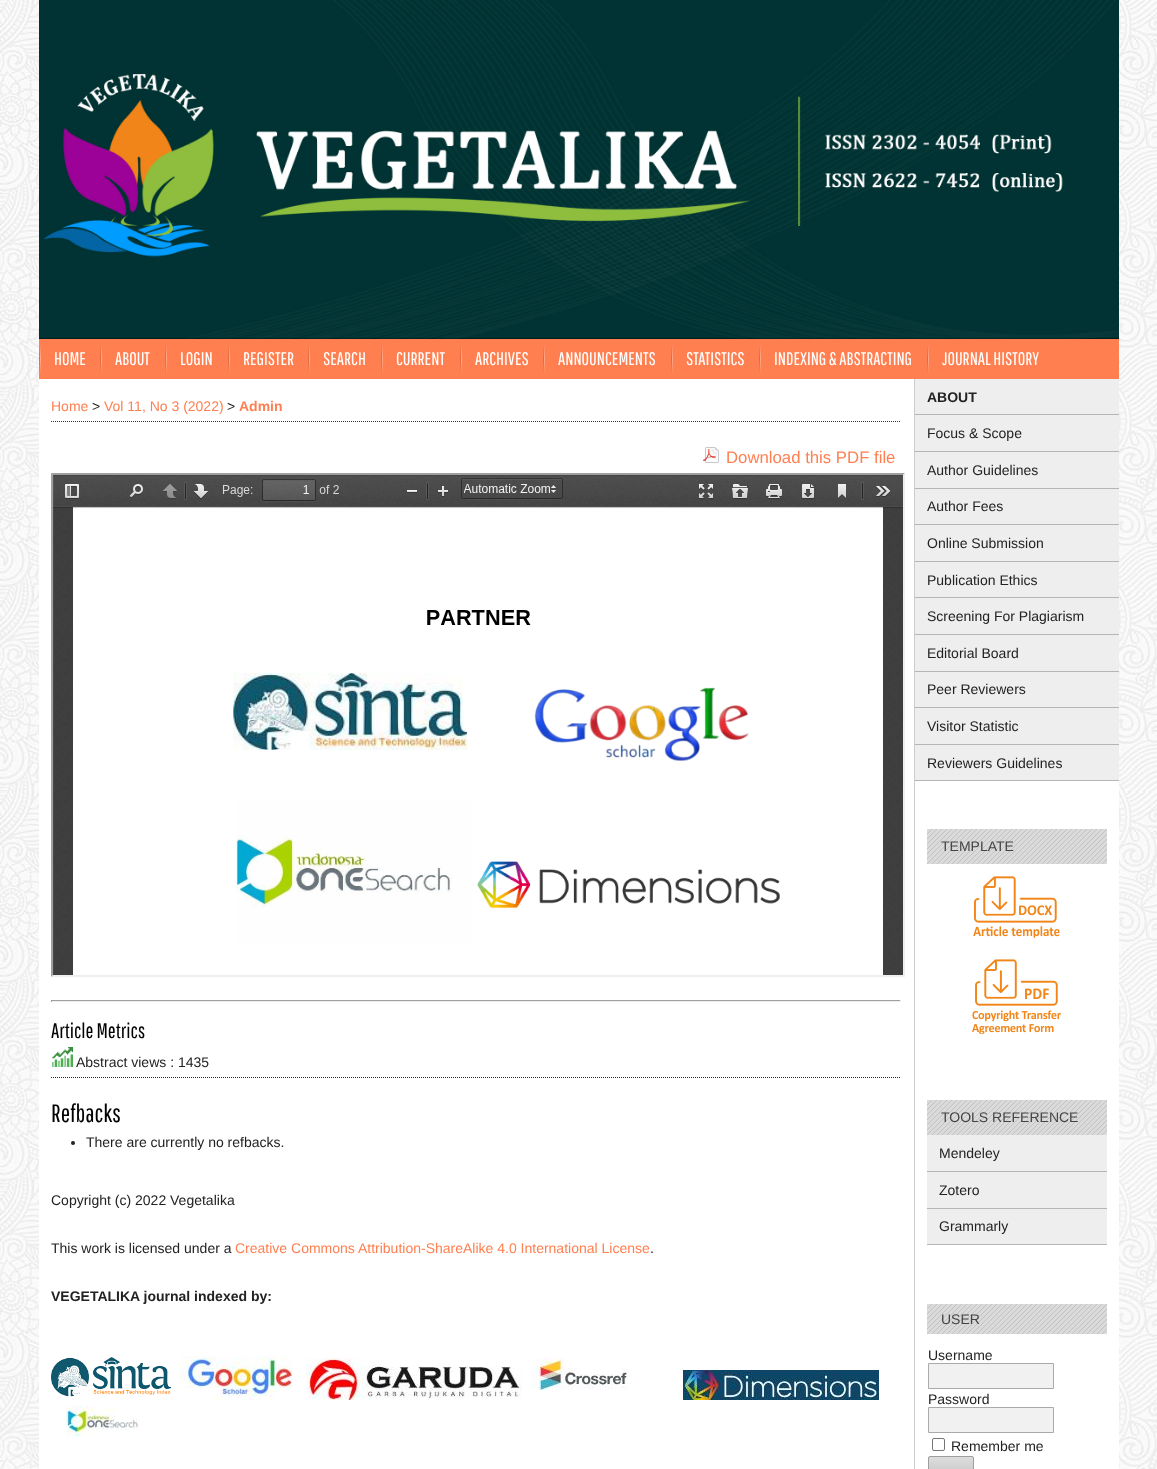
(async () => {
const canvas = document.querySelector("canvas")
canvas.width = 1157
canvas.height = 1469
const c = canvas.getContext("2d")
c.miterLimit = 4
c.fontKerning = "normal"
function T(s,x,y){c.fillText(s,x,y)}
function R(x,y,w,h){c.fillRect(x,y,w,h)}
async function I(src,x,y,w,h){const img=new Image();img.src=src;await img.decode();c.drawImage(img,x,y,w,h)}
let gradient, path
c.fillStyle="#fff"
R(0,0,1157,1469)
await I("1.png",0,0,1157,1469)
await I("2.png",39,0,1080,339)
R(39,379,1080,1090)
c.fillStyle="#ff7f50"
R(39,339,1080,40)
gradient = c.createLinearGradient(40,344,40,374)
gradient.addColorStop(0,"#ff7f50")
gradient.addColorStop(.5,"#d96c44")
gradient.addColorStop(1,"#ff7f50")
c.fillStyle = gradient
R(39,344,1,30)
gradient = c.createLinearGradient(41,344,41,374)
gradient.addColorStop(0,"#ff7f50")
gradient.addColorStop(.5,"#ffac8d")
gradient.addColorStop(1,"#ff7f50")
c.fillStyle = gradient
R(40,344,1,30)
c.font="18.25px Pathway Gothic One"
c.fillStyle="#fff"
T("HOME",54,365)
gradient = c.createLinearGradient(101,344,101,374)
gradient.addColorStop(0,"#ff7f50")
gradient.addColorStop(.5,"#d96c44")
gradient.addColorStop(1,"#ff7f50")
c.fillStyle = gradient
R(100,344,1,30)
gradient = c.createLinearGradient(102,344,102,374)
gradient.addColorStop(0,"#ff7f50")
gradient.addColorStop(.5,"#ffac8d")
gradient.addColorStop(1,"#ff7f50")
c.fillStyle = gradient
R(101,344,1,30)
c.fillStyle="#fff"
T("ABOUT",115,365)
gradient = c.createLinearGradient(166,344,166,374)
gradient.addColorStop(0,"#ff7f50")
gradient.addColorStop(.5,"#d96c44")
gradient.addColorStop(1,"#ff7f50")
c.fillStyle = gradient
R(165,344,1,30)
gradient = c.createLinearGradient(167,344,167,374)
gradient.addColorStop(0,"#ff7f50")
gradient.addColorStop(.5,"#ffac8d")
gradient.addColorStop(1,"#ff7f50")
c.fillStyle = gradient
R(166,344,1,30)
c.fillStyle="#fff"
T("LOGIN",180,365)
gradient = c.createLinearGradient(229,344,229,374)
gradient.addColorStop(0,"#ff7f50")
gradient.addColorStop(.5,"#d96c44")
gradient.addColorStop(1,"#ff7f50")
c.fillStyle = gradient
R(228,344,1,30)
gradient = c.createLinearGradient(230,344,230,374)
gradient.addColorStop(0,"#ff7f50")
gradient.addColorStop(.5,"#ffac8d")
gradient.addColorStop(1,"#ff7f50")
c.fillStyle = gradient
R(229,344,1,30)
c.fillStyle="#fff"
T("REGISTER",243,365)
gradient = c.createLinearGradient(309,344,309,374)
gradient.addColorStop(0,"#ff7f50")
gradient.addColorStop(.5,"#d96c44")
gradient.addColorStop(1,"#ff7f50")
c.fillStyle = gradient
R(308,344,1,30)
gradient = c.createLinearGradient(310,344,310,374)
gradient.addColorStop(0,"#ff7f50")
gradient.addColorStop(.5,"#ffac8d")
gradient.addColorStop(1,"#ff7f50")
c.fillStyle = gradient
R(309,344,1,30)
c.fillStyle="#fff"
T("SEARCH",323,365)
gradient = c.createLinearGradient(382,344,382,374)
gradient.addColorStop(0,"#ff7f50")
gradient.addColorStop(.5,"#d96c44")
gradient.addColorStop(1,"#ff7f50")
c.fillStyle = gradient
R(381,344,1,30)
gradient = c.createLinearGradient(383,344,383,374)
gradient.addColorStop(0,"#ff7f50")
gradient.addColorStop(.5,"#ffac8d")
gradient.addColorStop(1,"#ff7f50")
c.fillStyle = gradient
R(382,344,1,30)
c.fillStyle="#fff"
T("CURRENT",396,365)
gradient = c.createLinearGradient(461,344,461,374)
gradient.addColorStop(0,"#ff7f50")
gradient.addColorStop(.5,"#d96c44")
gradient.addColorStop(1,"#ff7f50")
c.fillStyle = gradient
R(460,344,1,30)
gradient = c.createLinearGradient(462,344,462,374)
gradient.addColorStop(0,"#ff7f50")
gradient.addColorStop(.5,"#ffac8d")
gradient.addColorStop(1,"#ff7f50")
c.fillStyle = gradient
R(461,344,1,30)
c.fillStyle="#fff"
T("ARCHIVES",475,365)
gradient = c.createLinearGradient(544,344,544,374)
gradient.addColorStop(0,"#ff7f50")
gradient.addColorStop(.5,"#d96c44")
gradient.addColorStop(1,"#ff7f50")
c.fillStyle = gradient
R(543,344,1,30)
gradient = c.createLinearGradient(545,344,545,374)
gradient.addColorStop(0,"#ff7f50")
gradient.addColorStop(.5,"#ffac8d")
gradient.addColorStop(1,"#ff7f50")
c.fillStyle = gradient
R(544,344,1,30)
c.fillStyle="#fff"
T("ANNOUNCEMENTS",558,365)
gradient = c.createLinearGradient(672,344,672,374)
gradient.addColorStop(0,"#ff7f50")
gradient.addColorStop(.5,"#d96c44")
gradient.addColorStop(1,"#ff7f50")
c.fillStyle = gradient
R(671,344,1,30)
gradient = c.createLinearGradient(673,344,673,374)
gradient.addColorStop(0,"#ff7f50")
gradient.addColorStop(.5,"#ffac8d")
gradient.addColorStop(1,"#ff7f50")
c.fillStyle = gradient
R(672,344,1,30)
c.fillStyle="#fff"
T("STATISTICS",686,365)
gradient = c.createLinearGradient(760,344,760,374)
gradient.addColorStop(0,"#ff7f50")
gradient.addColorStop(.5,"#d96c44")
gradient.addColorStop(1,"#ff7f50")
c.fillStyle = gradient
R(759,344,1,30)
gradient = c.createLinearGradient(761,344,761,374)
gradient.addColorStop(0,"#ff7f50")
gradient.addColorStop(.5,"#ffac8d")
gradient.addColorStop(1,"#ff7f50")
c.fillStyle = gradient
R(760,344,1,30)
c.fillStyle="#fff"
T("INDEXING & ABSTRACTING",774,365)
gradient = c.createLinearGradient(928,344,928,374)
gradient.addColorStop(0,"#ff7f50")
gradient.addColorStop(.5,"#d96c44")
gradient.addColorStop(1,"#ff7f50")
c.fillStyle = gradient
R(927,344,1,30)
gradient = c.createLinearGradient(929,344,929,374)
gradient.addColorStop(0,"#ff7f50")
gradient.addColorStop(.5,"#ffac8d")
gradient.addColorStop(1,"#ff7f50")
c.fillStyle = gradient
R(928,344,1,30)
c.fillStyle="#fff"
T("JOURNAL HISTORY",942,365)
path = new Path2D("M51 421.5h850")
c.strokeStyle="#333"
c.setLineDash([1,1])
c.stroke(path)
c.font="14px Liberation Sans"
c.fillStyle="#ff7f50"
T("Home",51,411)
c.fillStyle="#222"
T(">",92,411)
c.fillStyle="#ff7f50"
T("Vol 11, No 3 (2022)",104,411)
c.fillStyle="#222"
T(">",227,411)
c.font="bold 14px Liberation Sans"
c.fillStyle="#ff7f50"
T("Admin",239,411)
await I("3.png",703,447,16,16)
c.font="16.75px Liberation Sans"
T("Download this PDF file",726,463)
c.fillStyle="#9f9f9f"
path = new Path2D("M51 473h854l-2 2h-850z")
c.fill(path)
c.fillStyle="#eee"
path = new Path2D("M905 473v504l-2-2v-500z")
c.fill(path)
path = new Path2D("M905 977h-854l2-2h850z")
c.fill(path)
c.fillStyle="#9f9f9f"
path = new Path2D("M51 977v-504l2 2v500z")
c.fill(path)
await I("4.png",53,475,850,500)
R(51,1000,850,1)
c.fillStyle="#eee"
R(900,1000,1,2)
R(51,1001,850,1)
c.fillStyle="#9f9f9f"
R(51,1000,1,2)
c.font="21px Pathway Gothic One"
c.fillStyle="#000"
T("Article Metrics",51,1038)
await I("5.png",52,1047,21,20)
c.font="14px Liberation Sans"
c.fillStyle="#222"
T("Abstract views : 1435",76,1067)
path = new Path2D("M51 1077.5h850")
c.strokeStyle="#222"
c.stroke(path)
c.font="25px Pathway Gothic One"
c.fillStyle="#000"
T("Refbacks",51,1122)
c.fillStyle="#222"
c.beginPath()
c.arc(73,1143,2,0,7)
c.fill()
c.font="14px Liberation Sans"
T("There are currently no refbacks.",86,1147)
T("Copyright (c) 2022 Vegetalika",51,1205)
T("This work is licensed under a",51,1253)
c.fillStyle="#ff7f50"
T("Creative Commons Attribution-ShareAlike 4.0 International License",235,1253)
c.fillStyle="#222"
T(".",650,1253)
c.font="bold 14px Liberation Sans"
T("VEGETALIKA journal indexed by:",51,1301)
await I("6.png",51,1357,120,40)
await I("7.png",180,1356,113,44)
await I("8.png",306,1358,216,42)
await I("9.png",532,1358,96,33)
await I("10.png",683,1370,196,30)
await I("11.png",66,1406,73,30)
c.fillStyle="#ccc"
R(914,379,1,1090)
c.fillStyle="#eee"
R(915,379,204,35)
c.fillStyle="#b5b5b5"
R(915,414,204,1)
c.fillStyle="#222"
T("ABOUT",927,402)
c.fillStyle="#eee"
R(915,415,204,36)
c.fillStyle="#b5b5b5"
R(915,451,204,1)
c.font="14px Liberation Sans"
c.fillStyle="#222"
T("Focus & Scope",927,438)
c.fillStyle="#eee"
R(915,452,204,36)
c.fillStyle="#b5b5b5"
R(915,488,204,1)
c.fillStyle="#222"
T("Author Guidelines",927,475)
c.fillStyle="#eee"
R(915,489,204,35)
c.fillStyle="#b5b5b5"
R(915,524,204,1)
c.fillStyle="#222"
T("Author Fees",927,511)
c.fillStyle="#eee"
R(915,525,204,36)
c.fillStyle="#b5b5b5"
R(915,561,204,1)
c.fillStyle="#222"
T("Online Submission",927,548)
c.fillStyle="#eee"
R(915,562,204,35)
c.fillStyle="#b5b5b5"
R(915,597,204,1)
c.fillStyle="#222"
T("Publication Ethics",927,585)
c.fillStyle="#eee"
R(915,598,204,36)
c.fillStyle="#b5b5b5"
R(915,634,204,1)
c.fillStyle="#222"
T("Screening For Plagiarism",927,621)
c.fillStyle="#eee"
R(915,635,204,36)
c.fillStyle="#b5b5b5"
R(915,671,204,1)
c.fillStyle="#222"
T("Editorial Board",927,658)
c.fillStyle="#eee"
R(915,672,204,35)
c.fillStyle="#b5b5b5"
R(915,707,204,1)
c.fillStyle="#222"
T("Peer Reviewers",927,694)
c.fillStyle="#eee"
R(915,708,204,36)
c.fillStyle="#b5b5b5"
R(915,744,204,1)
c.fillStyle="#222"
T("Visitor Statistic",927,731)
c.fillStyle="#eee"
R(915,745,204,35)
c.fillStyle="#b5b5b5"
R(915,780,204,1)
c.fillStyle="#222"
T("Reviewers Guidelines",927,768)
c.fillStyle="#dadada"
R(927,829,180,35)
await I("12.png",927,829,180,35)
c.fillStyle="#444"
T("TEMPLATE",941,851)
await I("13.png",973,876,87,62)
await I("14.png",972,959,89,75)
c.fillStyle="#dadada"
R(927,1100,180,35)
await I("12.png",927,1100,180,35)
c.fillStyle="#444"
T("TOOLS REFERENCE",941,1122)
c.fillStyle="#eee"
R(927,1135,180,36)
c.fillStyle="#b5b5b5"
R(927,1171,180,1)
c.fillStyle="#222"
T("Mendeley",939,1158)
c.fillStyle="#eee"
R(927,1172,180,36)
c.fillStyle="#b5b5b5"
R(927,1208,180,1)
c.fillStyle="#222"
T("Zotero",939,1195)
c.fillStyle="#eee"
R(927,1209,180,35)
c.fillStyle="#b5b5b5"
R(927,1244,180,1)
c.fillStyle="#222"
T("Grammarly",939,1231)
c.fillStyle="#dadada"
R(927,1304,180,30)
await I("15.png",927,1304,180,30)
c.fillStyle="#444"
T("USER",941,1324)
c.fillStyle="#222"
T("Username",928,1360)
c.fillStyle="#f1f1f1"
c.beginPath()
c.rect(928.5,1363.5,125,25)
c.fill()
c.strokeStyle="#aaa"
c.setLineDash([])
c.stroke()
c.fillStyle="#222"
T("Password",928,1404)
c.fillStyle="#f1f1f1"
c.beginPath()
c.rect(928.5,1407.5,125,25)
c.fill()
c.stroke()
c.beginPath()
c.roundRect(932.5,1438.5,12,12,1.5)
c.strokeStyle="#767676"
c.stroke()
c.fillStyle="#222"
T("Remember me",951,1451)
gradient = c.createLinearGradient(951,1457,951,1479)
gradient.addColorStop(0,"#ddd")
gradient.addColorStop(1,"#c4c4c4")
c.fillStyle = gradient
R(928,1457,46,12)
c.beginPath()
c.roundRect(928.5,1456.5,45,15,1.5)
c.strokeStyle="#9d9d9d"
c.stroke()
})()
